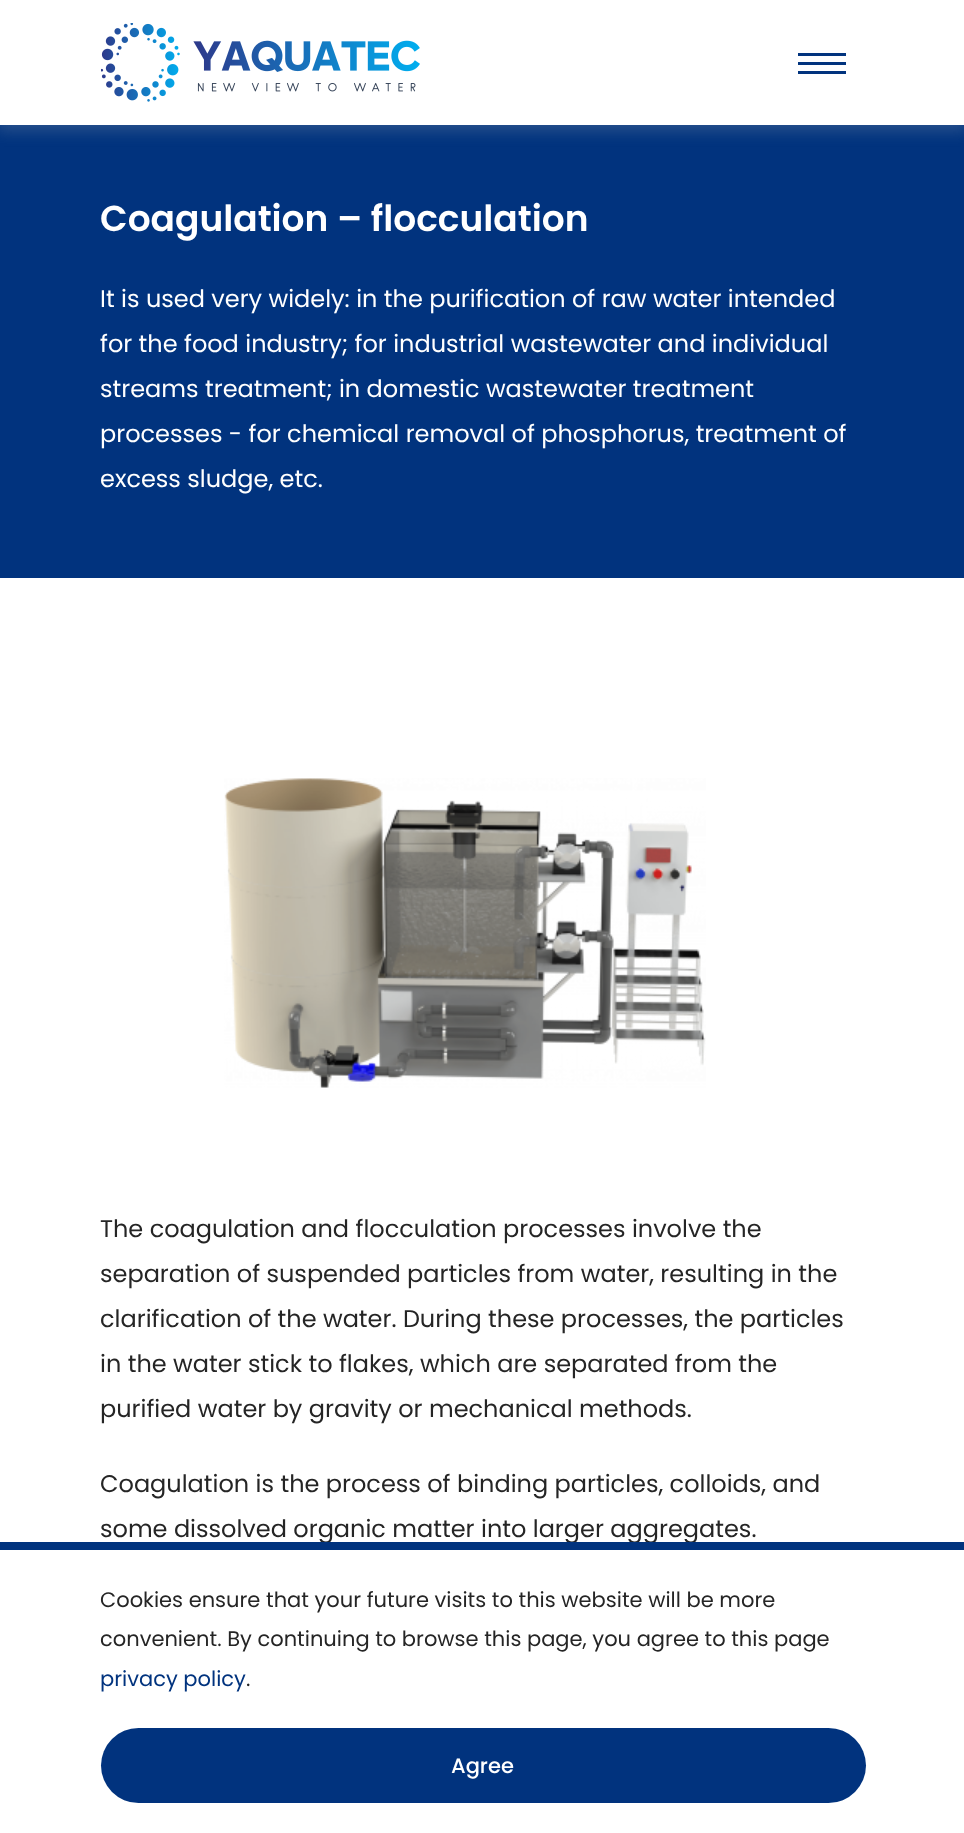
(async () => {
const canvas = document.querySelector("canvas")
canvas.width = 964
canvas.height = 1833
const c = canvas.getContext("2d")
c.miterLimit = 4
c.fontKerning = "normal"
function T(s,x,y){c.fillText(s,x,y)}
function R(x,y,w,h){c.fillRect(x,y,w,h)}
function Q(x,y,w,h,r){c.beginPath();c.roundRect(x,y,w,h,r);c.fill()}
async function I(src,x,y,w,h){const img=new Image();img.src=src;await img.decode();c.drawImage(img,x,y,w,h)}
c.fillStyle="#fff"
R(0,0,964,1833)
c.fillStyle="#01337e"
R(0,125,964,453)
c.fillStyle="#c7c7c733"
c.filter="blur(7.5px)"
c.beginPath()
c.rect(-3,0,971,131)
c.fill()
c.filter="none"
c.fillStyle="#fff"
R(0,0,964,125)
await I("1.png",101,23,319,79)
c.fillStyle="#01337e"
R(798,53,48,3)
R(798,62,48,3)
R(798,71,48,3)
c.font="600 36px Poppins"
c.fillStyle="#fff"
T("Coagulation – flocculation",100,231)
c.font="24px Poppins"
T("It is used very widely: in the purification of raw water intended",100,307)
T("for the food industry; for industrial wastewater and individual",100,352)
T("streams treatment; in domestic wastewater treatment",100,397)
T("processes - for chemical removal of phosphorus, treatment of",100,442)
T("excess sludge, etc.",100,487)
await I("2.png",224,778,482,310)
c.fillStyle="#252525"
T("The coagulation and flocculation processes involve the",100,1237)
T("separation of suspended particles from water, resulting in the",100,1282)
T("clarification of the water. During these processes, the particles",100,1327)
T("in the water stick to flakes, which are separated from the",100,1372)
T("purified water by gravity or mechanical methods.",100,1417)
T("Coagulation is the process of binding particles, colloids, and",100,1492)
T("some dissolved organic matter into larger aggregates.",100,1537)
c.fillStyle="#01337e"
R(0,1542,964,8)
c.font="21px Poppins"
c.fillStyle="#252525"
T("Cookies ensure that your future visits to this website will be more",100,1607)
T("convenient. By continuing to browse this page, you agree to this page",100,1646)
c.fillStyle="#01337e"
T("privacy policy",100,1686)
c.fillStyle="#252525"
T(".",246,1686)
c.fillStyle="#01337e"
Q(101,1728,765,75,37.5)
c.font="500 21px Poppins"
c.fillStyle="#fff"
T("Agree",451,1773)
})()
